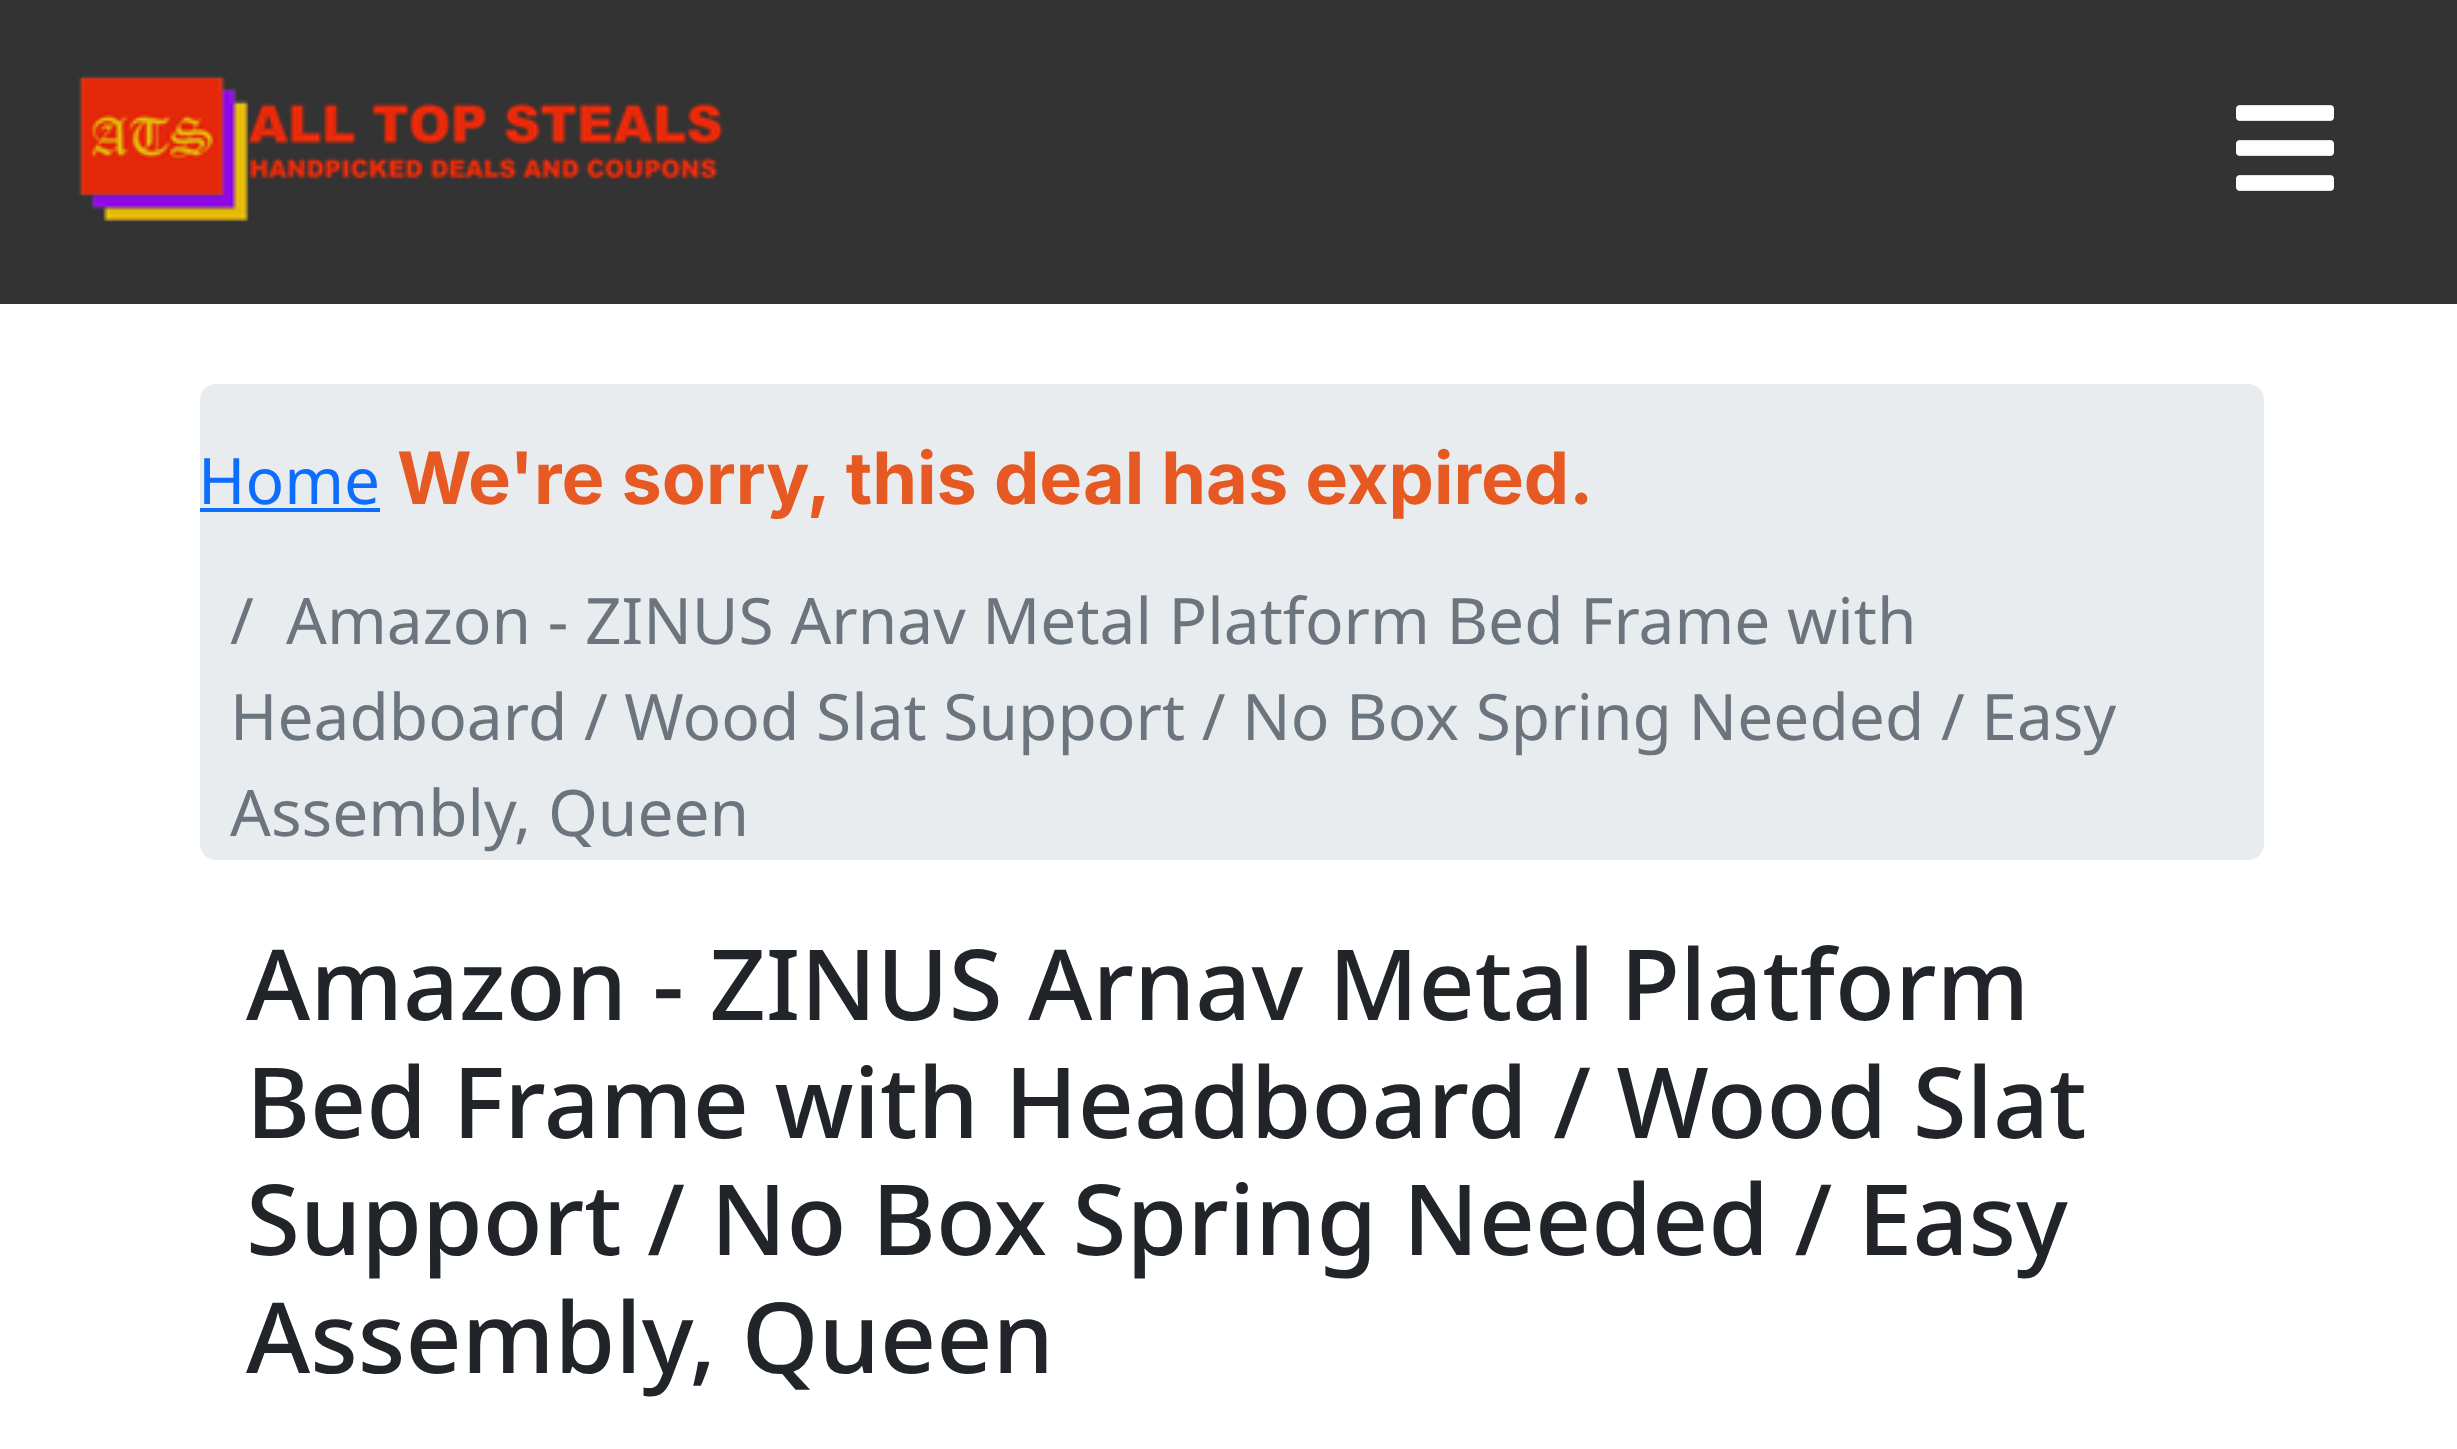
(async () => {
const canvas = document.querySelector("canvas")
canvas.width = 2457
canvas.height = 1449
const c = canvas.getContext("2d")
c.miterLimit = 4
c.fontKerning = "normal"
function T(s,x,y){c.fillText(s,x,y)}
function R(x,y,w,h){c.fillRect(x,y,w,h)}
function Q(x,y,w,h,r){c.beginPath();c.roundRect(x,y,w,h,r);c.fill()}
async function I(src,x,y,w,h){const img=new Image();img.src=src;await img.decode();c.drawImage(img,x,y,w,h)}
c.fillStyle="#fff"
R(0,0,2457,1449)
c.fillStyle="#333"
R(0,0,2457,304)
await I("1.png",78,75,646,148)
await I("2.png",2236,105,98,86)
c.fillStyle="#e9ecef"
Q(200,384,2064,476,16)
c.font="64px Noto Sans"
c.fillStyle="#0d6efd"
T("Home",198,504)
R(200,508,180,4)
c.font="bold 72px Inter"
c.fillStyle="#e65922"
T("We're sorry, this deal has expired.",397,504)
c.font="64px Noto Sans"
c.fillStyle="#6c757d"
T("/",230,644)
T("Amazon - ZINUS Arnav Metal Platform Bed Frame with",286,644)
T("Headboard / Wood Slat Support / No Box Spring Needed / Easy",230,740)
T("Assembly, Queen",230,836)
c.font="500 98px Noto Sans"
c.fillStyle="#212529"
T("Amazon - ZINUS Arnav Metal Platform",246,1020)
T("Bed Frame with Headboard / Wood Slat",246,1138)
T("Support / No Box Spring Needed / Easy",246,1255)
T("Assembly, Queen",246,1373)
})()
